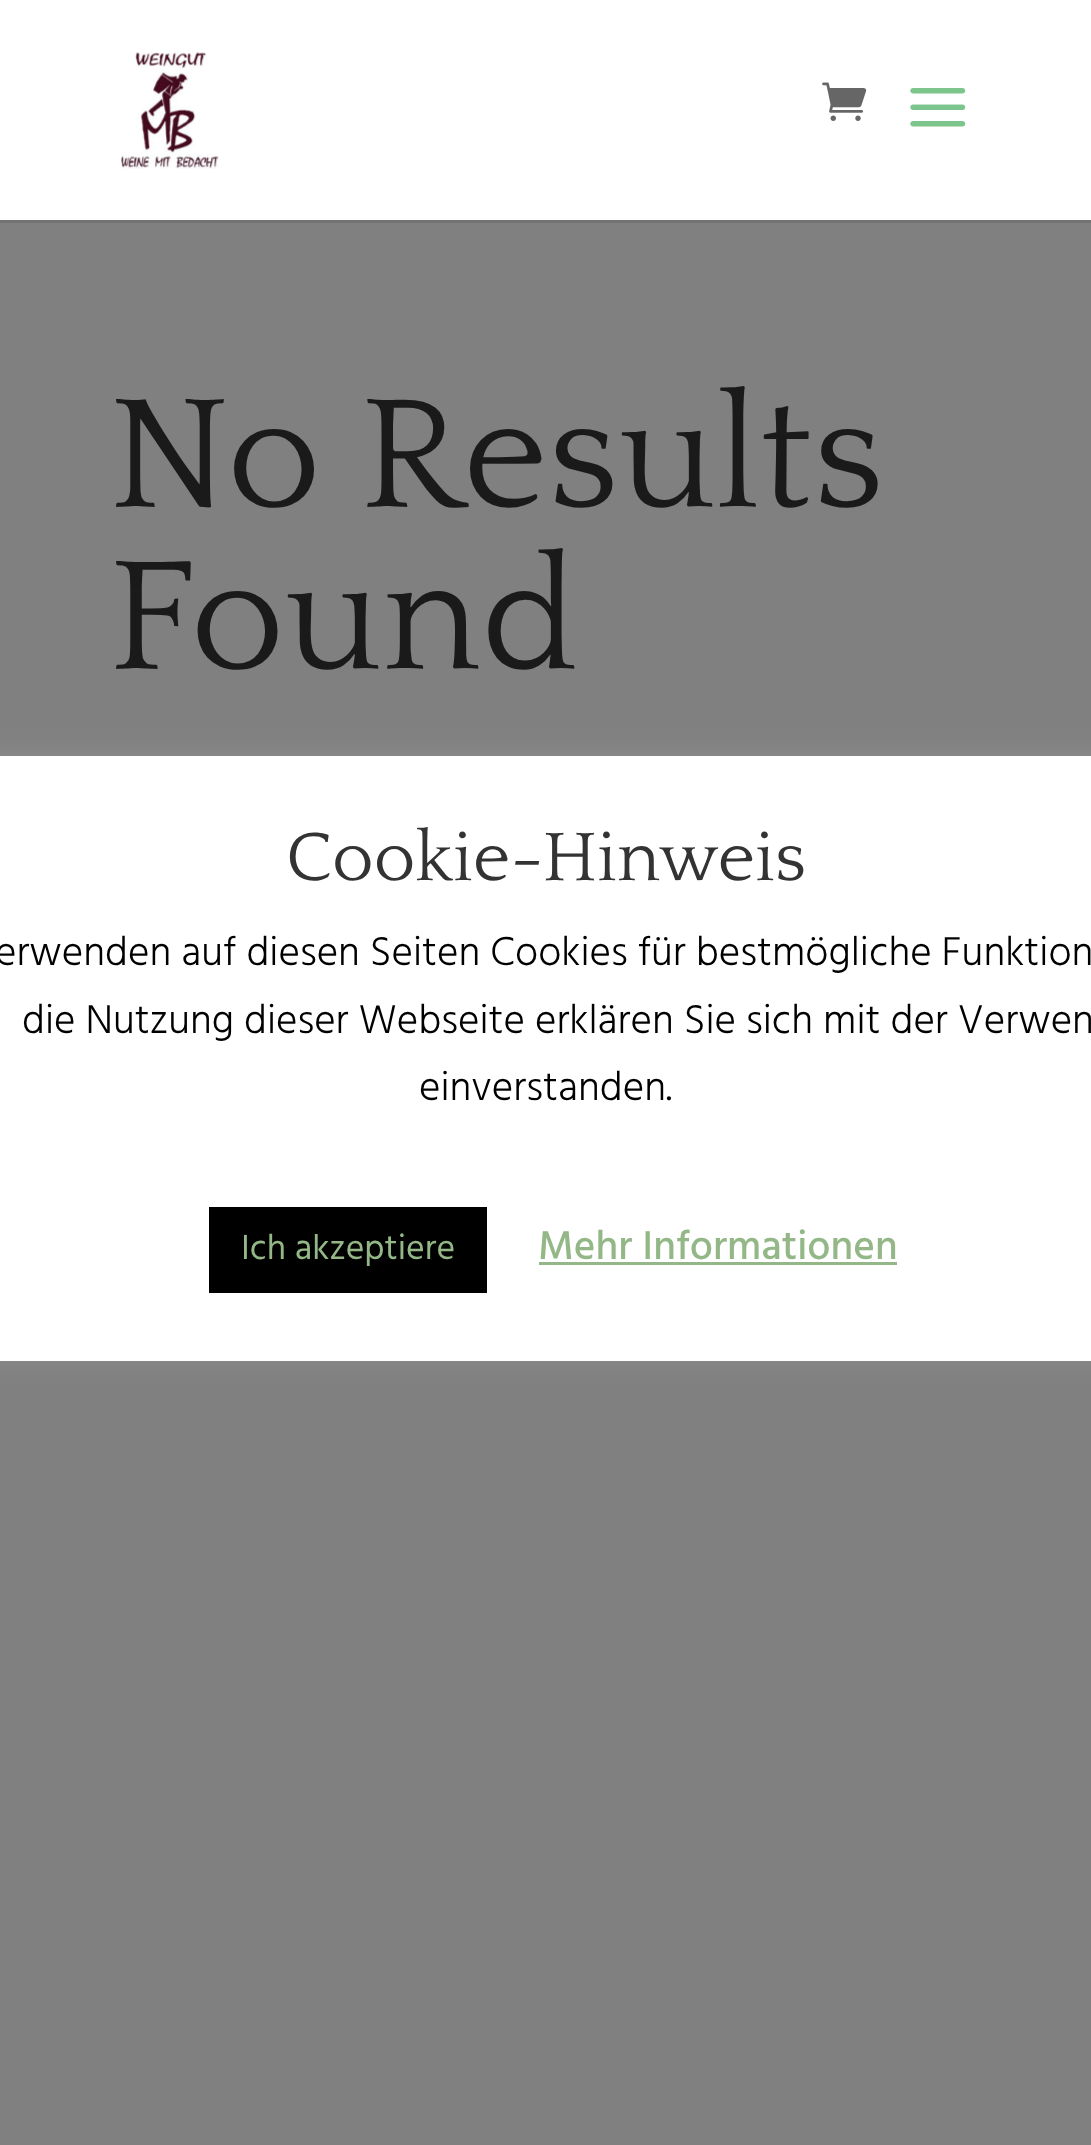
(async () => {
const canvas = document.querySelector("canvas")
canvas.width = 1091
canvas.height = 2145
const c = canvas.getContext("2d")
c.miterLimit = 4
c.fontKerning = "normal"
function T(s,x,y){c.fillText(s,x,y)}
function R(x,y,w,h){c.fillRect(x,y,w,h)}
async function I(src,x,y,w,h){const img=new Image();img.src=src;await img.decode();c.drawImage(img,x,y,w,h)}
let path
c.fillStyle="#808080"
R(0,0,1091,2145)
c.fillStyle="#737373"
path = new Path2D("M0 220v3h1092v-220v217z")
c.fill(path)
c.fillStyle="#fff"
R(0,0,1091,220)
await I("1.png",121,52,98,117)
await I("2.png",822,82,45,39)
await I("3.png",910,88,56,39)
c.font="162.25px Quattrocento"
c.fillStyle="#1a1a1a"
T("No Results",109,506)
T("Found",109,668)
c.fillStyle="#acabab4d"
c.filter="blur(14px)"
c.beginPath()
c.roundRect(-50,754,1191,605,8)
c.fill()
c.filter="none"
c.fillStyle="#fff"
R(0,756,1091,605)
c.font="71.5px Quattrocento"
c.fillStyle="#333"
T("Cookie-Hinweis",286,880)
c.font="300 41.25px Hind"
c.fillStyle="#000"
T("erwenden auf diesen Seiten Cookies für bestmögliche Funktion",-5,965)
T("die Nutzung dieser Webseite erklären Sie sich mit der Verwen",22,1033)
T("einverstanden.",419,1100)
R(209,1207,278,86)
c.font="35.75px Hind"
c.fillStyle="#93b786"
T("Ich akzeptiere",241,1259)
c.font="500 41.25px Hind"
T("Mehr Informationen",538,1259)
R(539,1262,358,3)
})()
